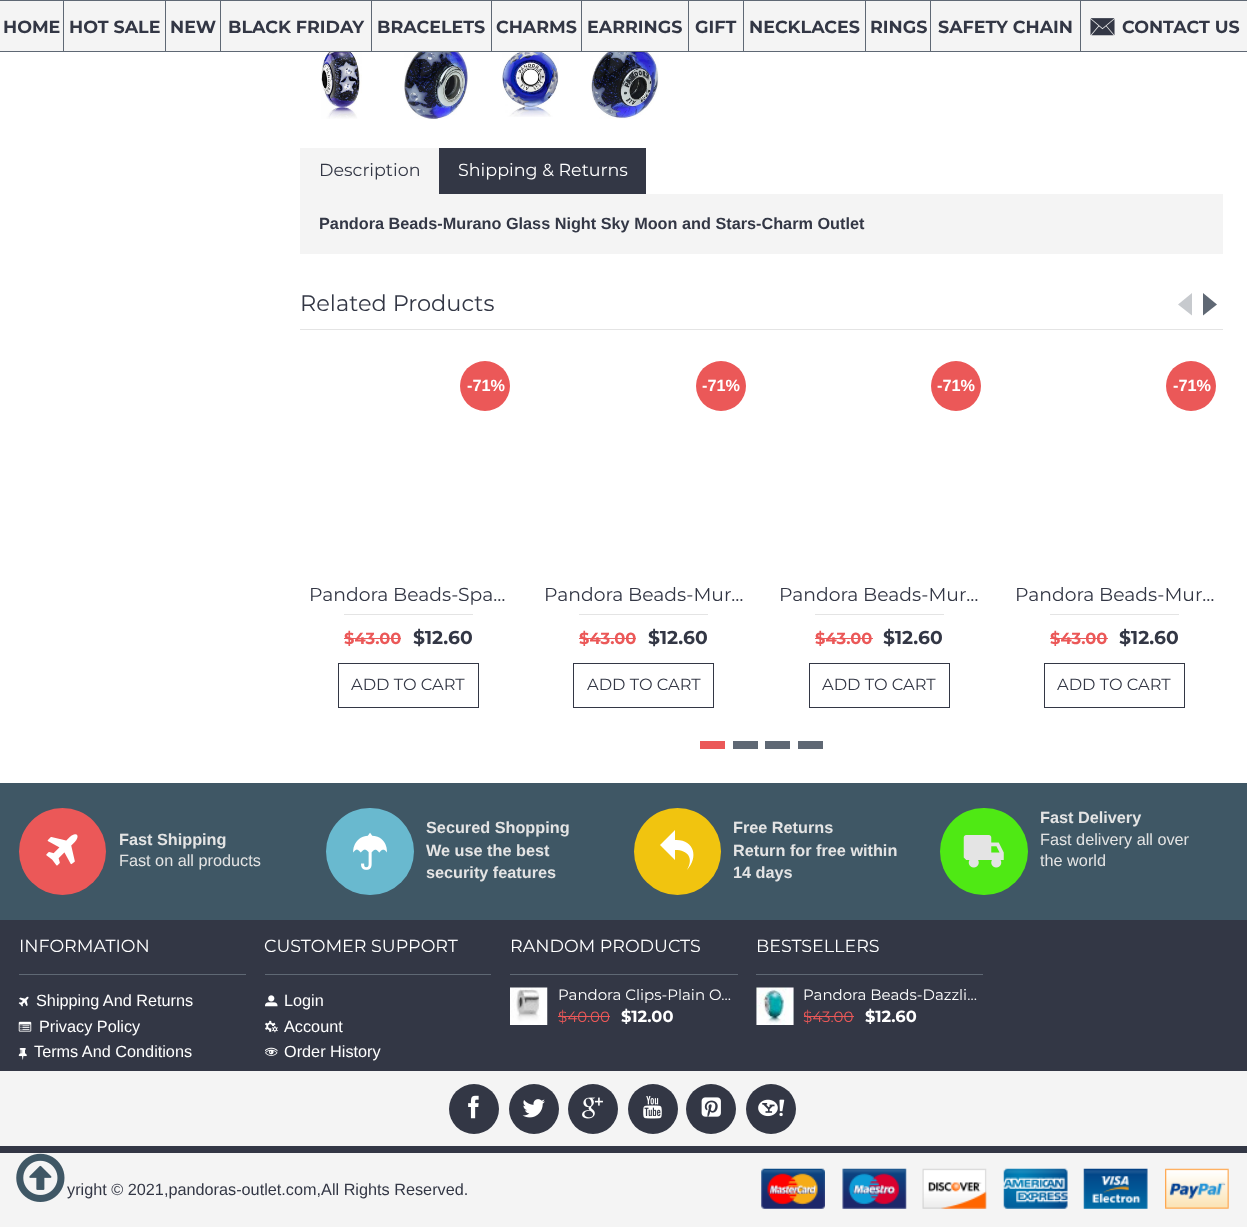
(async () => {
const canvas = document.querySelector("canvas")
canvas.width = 1247
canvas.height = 1227
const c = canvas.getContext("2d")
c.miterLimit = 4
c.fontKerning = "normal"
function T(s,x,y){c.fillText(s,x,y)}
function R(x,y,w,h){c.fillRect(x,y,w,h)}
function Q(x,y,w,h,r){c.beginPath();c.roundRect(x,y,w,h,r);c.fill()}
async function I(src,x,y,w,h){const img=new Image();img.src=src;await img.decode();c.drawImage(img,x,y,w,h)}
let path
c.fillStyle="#fff"
R(0,0,1247,1227)
c.fillStyle="#f4f4f4"
R(0,1,1247,50)
c.fillStyle="#5f6874"
R(0,0,1247,1)
R(0,51,1247,1)
c.font="bold 17.5px Montserrat"
c.fillStyle="#333745"
T("HOME",3,33)
c.fillStyle="#5f6874"
R(63,1,1,50)
c.fillStyle="#333745"
T("HOT SALE",69,33)
c.fillStyle="#5f6874"
R(165,1,1,50)
c.fillStyle="#333745"
T("NEW",170,33)
c.fillStyle="#5f6874"
R(220,1,1,50)
c.fillStyle="#333745"
T("BLACK FRIDAY",228,33)
c.fillStyle="#5f6874"
R(371,1,1,50)
c.fillStyle="#333745"
T("BRACELETS",377,33)
c.fillStyle="#5f6874"
R(491,1,1,50)
c.fillStyle="#333745"
T("CHARMS",496,33)
c.fillStyle="#5f6874"
R(581,1,1,50)
c.fillStyle="#333745"
T("EARRINGS",587,33)
c.fillStyle="#5f6874"
R(688,1,1,50)
c.fillStyle="#333745"
T("GIFT",695,33)
c.fillStyle="#5f6874"
R(743,1,1,50)
c.fillStyle="#333745"
T("NECKLACES",749,33)
c.fillStyle="#5f6874"
R(865,1,1,50)
c.fillStyle="#333745"
T("RINGS",870,33)
c.fillStyle="#5f6874"
R(930,1,1,50)
c.fillStyle="#333745"
T("SAFETY CHAIN",938,33)
c.fillStyle="#5f6874"
R(1080,1,1,50)
await I("1.png",1090,18,25,18)
c.fillStyle="#333745"
T("CONTACT US",1122,33)
await I("2.png",321,52,41,67)
await I("3.png",404,52,66,67)
await I("4.png",502,52,57,65)
await I("5.png",590,52,69,67)
c.fillStyle="#f4f4f4"
R(300,148,139,46)
c.font="17.5px Montserrat"
c.fillStyle="#333745"
T("Description",319,176)
R(439,148,207,46)
c.fillStyle="#fff"
T("Shipping & Returns",458,176)
c.fillStyle="#f4f4f4"
R(300,194,923,60)
c.font="bold 16.25px Liberation Sans"
c.fillStyle="#333745"
T("Pandora Beads-Murano Glass Night Sky Moon and Stars-Charm Outlet",319,229)
c.fillStyle="#e4e4e4"
R(300,329,923,1)
c.font="22.5px Montserrat"
c.fillStyle="#333745"
T("Related Products",300,311)
c.fillStyle="#c7cace"
path = new Path2D("M1192 315.5v-22.5l-14 11.5z")
c.fill(path)
c.fillStyle="#5f6874"
path = new Path2D("M1203 293v22.5l14-11z")
c.fill(path)
c.fillStyle="#eb5858"
c.beginPath()
c.arc(485,386,25,0,7)
c.fill()
c.font="bold 16.25px Liberation Sans"
c.fillStyle="#fff"
T("-71%",467,391)
c.font="18.75px Montserrat"
c.fillStyle="#333745"
T("Pandora Beads-Spa…",309,601)
c.fillStyle="#e4e4e4"
R(344,614,129,1)
c.font="bold 16.25px Montserrat"
c.fillStyle="#eb5858"
T("$43.00",344,644)
R(344,638,57,1)
c.font="bold 18.75px Montserrat"
c.fillStyle="#333745"
T("$12.60",413,644)
c.strokeStyle="#333745"
c.strokeRect(338.5,663.5,140,44)
c.font="16.25px Montserrat"
T("ADD TO CART",351,690)
c.fillStyle="#eb5858"
c.beginPath()
c.arc(721,386,25,0,7)
c.fill()
c.font="bold 16.25px Liberation Sans"
c.fillStyle="#fff"
T("-71%",702,391)
c.font="18.75px Montserrat"
c.fillStyle="#333745"
T("Pandora Beads-Mur…",544,601)
c.fillStyle="#e4e4e4"
R(579,614,129,1)
c.font="bold 16.25px Montserrat"
c.fillStyle="#eb5858"
T("$43.00",579,644)
R(579,638,57,1)
c.font="bold 18.75px Montserrat"
c.fillStyle="#333745"
T("$12.60",648,644)
c.strokeRect(573.5,663.5,140,44)
c.font="16.25px Montserrat"
T("ADD TO CART",587,690)
c.fillStyle="#eb5858"
c.beginPath()
c.arc(956,386,25,0,7)
c.fill()
c.font="bold 16.25px Liberation Sans"
c.fillStyle="#fff"
T("-71%",937,391)
c.font="18.75px Montserrat"
c.fillStyle="#333745"
T("Pandora Beads-Mur…",779,601)
c.fillStyle="#e4e4e4"
R(815,614,129,1)
c.font="bold 16.25px Montserrat"
c.fillStyle="#eb5858"
T("$43.00",815,644)
R(815,638,58,1)
c.font="bold 18.75px Montserrat"
c.fillStyle="#333745"
T("$12.60",883,644)
c.strokeRect(809.5,663.5,140,44)
c.font="16.25px Montserrat"
T("ADD TO CART",822,690)
c.fillStyle="#eb5858"
c.beginPath()
c.arc(1191,386,25,0,7)
c.fill()
c.font="bold 16.25px Liberation Sans"
c.fillStyle="#fff"
T("-71%",1173,391)
c.font="18.75px Montserrat"
c.fillStyle="#333745"
T("Pandora Beads-Mur…",1015,601)
c.fillStyle="#e4e4e4"
R(1050,614,129,1)
c.font="bold 16.25px Montserrat"
c.fillStyle="#eb5858"
T("$43.00",1050,644)
R(1050,638,58,1)
c.font="bold 18.75px Montserrat"
c.fillStyle="#333745"
T("$12.60",1119,644)
c.strokeRect(1044.5,663.5,140,44)
c.font="16.25px Montserrat"
T("ADD TO CART",1057,690)
c.fillStyle="#eb5858"
R(700,741,25,8)
c.fillStyle="#5f6874"
R(733,741,25,8)
R(765,741,25,8)
R(798,741,25,8)
c.fillStyle="#333745"
R(0,920,1247,233)
c.fillStyle="#3f5765"
R(0,783,1247,137)
c.fillStyle="#eb5858"
c.beginPath()
c.arc(62.5,851.5,43.5,0,7)
c.fill()
await I("6.png",46,834,32,32)
c.font="bold 16.25px Liberation Sans"
c.fillStyle="#e4e4e4"
T("Fast Shipping",119,845)
c.font="16.25px Liberation Sans"
T("Fast on all products",119,866)
c.fillStyle="#69b9cf"
Q(326,808,88,87,43.5)
await I("7.png",353,832,34,38)
c.font="bold 16.25px Liberation Sans"
c.fillStyle="#e4e4e4"
T("Secured Shopping",426,833)
T("We use the best",426,856)
T("security features",426,878)
c.fillStyle="#f1c40f"
c.beginPath()
c.arc(677.5,851.5,43.5,0,7)
c.fill()
c.fillStyle="#fff"
path = new Path2D("M687 870c7-12 1-20-12-20v10l-15-15l15-15v10c19-1 24 17 12 30z")
c.fill(path)
c.fillStyle="#e4e4e4"
T("Free Returns",733,833)
T("Return for free within",733,856)
T("14 days",733,878)
c.fillStyle="#4fe914"
Q(940,808,88,87,43.5)
await I("8.png",963,835,41,33)
c.fillStyle="#e4e4e4"
T("Fast Delivery",1040,823)
c.font="16.25px Liberation Sans"
T("Fast delivery all over",1040,845)
T("the world",1040,866)
c.fillStyle="#5f6874"
R(19,974,227,1)
c.font="17.5px Montserrat"
c.fillStyle="#fff"
T("INFORMATION",19,952)
await I("9.png",18,996,11,11)
c.font="16.25px Liberation Sans"
T("Shipping And Returns",36,1006)
await I("10.png",18,1021,14,11)
T("Privacy Policy",39,1032)
await I("11.png",18,1048,9,12)
T("Terms And Conditions",34,1057)
c.fillStyle="#5f6874"
R(265,974,226,1)
c.font="17.5px Montserrat"
c.fillStyle="#fff"
T("CUSTOMER SUPPORT",264,952)
await I("12.png",265,995,13,12)
c.font="16.25px Liberation Sans"
T("Login",284,1006)
await I("13.png",265,1020,13,13)
T("Account",284,1032)
await I("14.png",265,1047,13,9)
T("Order History",284,1057)
c.fillStyle="#5f6874"
R(510,974,228,1)
c.font="17.5px Montserrat"
c.fillStyle="#fff"
T("RANDOM PRODUCTS",510,952)
await I("15.png",510,987,38,38)
c.font="15px Montserrat"
T("Pandora Clips-Plain O…",558,1000)
c.fillStyle="#eb5858"
T("$40.00",558,1022)
R(558,1016,52,1)
c.font="bold 16.25px Montserrat"
c.fillStyle="#fff"
T("$12.00",621,1022)
c.fillStyle="#5f6874"
R(756,974,227,1)
c.font="17.5px Montserrat"
c.fillStyle="#fff"
T("BESTSELLERS",756,952)
await I("16.png",756,987,38,38)
c.font="15px Montserrat"
T("Pandora Beads-Dazzli…",803,1000)
c.fillStyle="#eb5858"
T("$43.00",803,1022)
R(804,1016,50,1)
c.font="bold 16.25px Montserrat"
c.fillStyle="#fff"
T("$12.60",865,1022)
c.fillStyle="#f4f4f4"
R(0,1071,1247,75)
c.fillStyle="#333745"
c.beginPath()
c.arc(474,1109,25,0,7)
c.fill()
await I("17.png",468,1095,11,24)
c.beginPath()
c.arc(534,1109,25,0,7)
c.fill()
await I("18.png",522,1099,23,19)
c.beginPath()
c.arc(593,1109,25,0,7)
c.fill()
await I("19.png",582,1097,21,22)
c.beginPath()
c.arc(653,1109,25,0,7)
c.fill()
await I("20.png",643,1096,19,23)
c.beginPath()
c.arc(711,1109,25,0,7)
c.fill()
await I("21.png",701,1097,20,20)
c.beginPath()
c.arc(771,1109,25,0,7)
c.fill()
await I("22.png",758,1099,27,18)
c.fillStyle="#f4f4f4"
R(0,1153,1247,74)
c.font="16.25px Liberation Sans"
c.fillStyle="#333745"
T("yright © 2021,pandoras-outlet.com,All Rights Reserved.",67,1195)
await I("23.png",761,1168,64,41)
await I("24.png",842,1168,65,41)
await I("25.png",922,1168,65,41)
await I("26.png",1003,1168,65,41)
await I("27.png",1083,1168,65,41)
await I("28.png",1165,1168,64,41)
await I("29.png",16,1153,49,49)
})()
